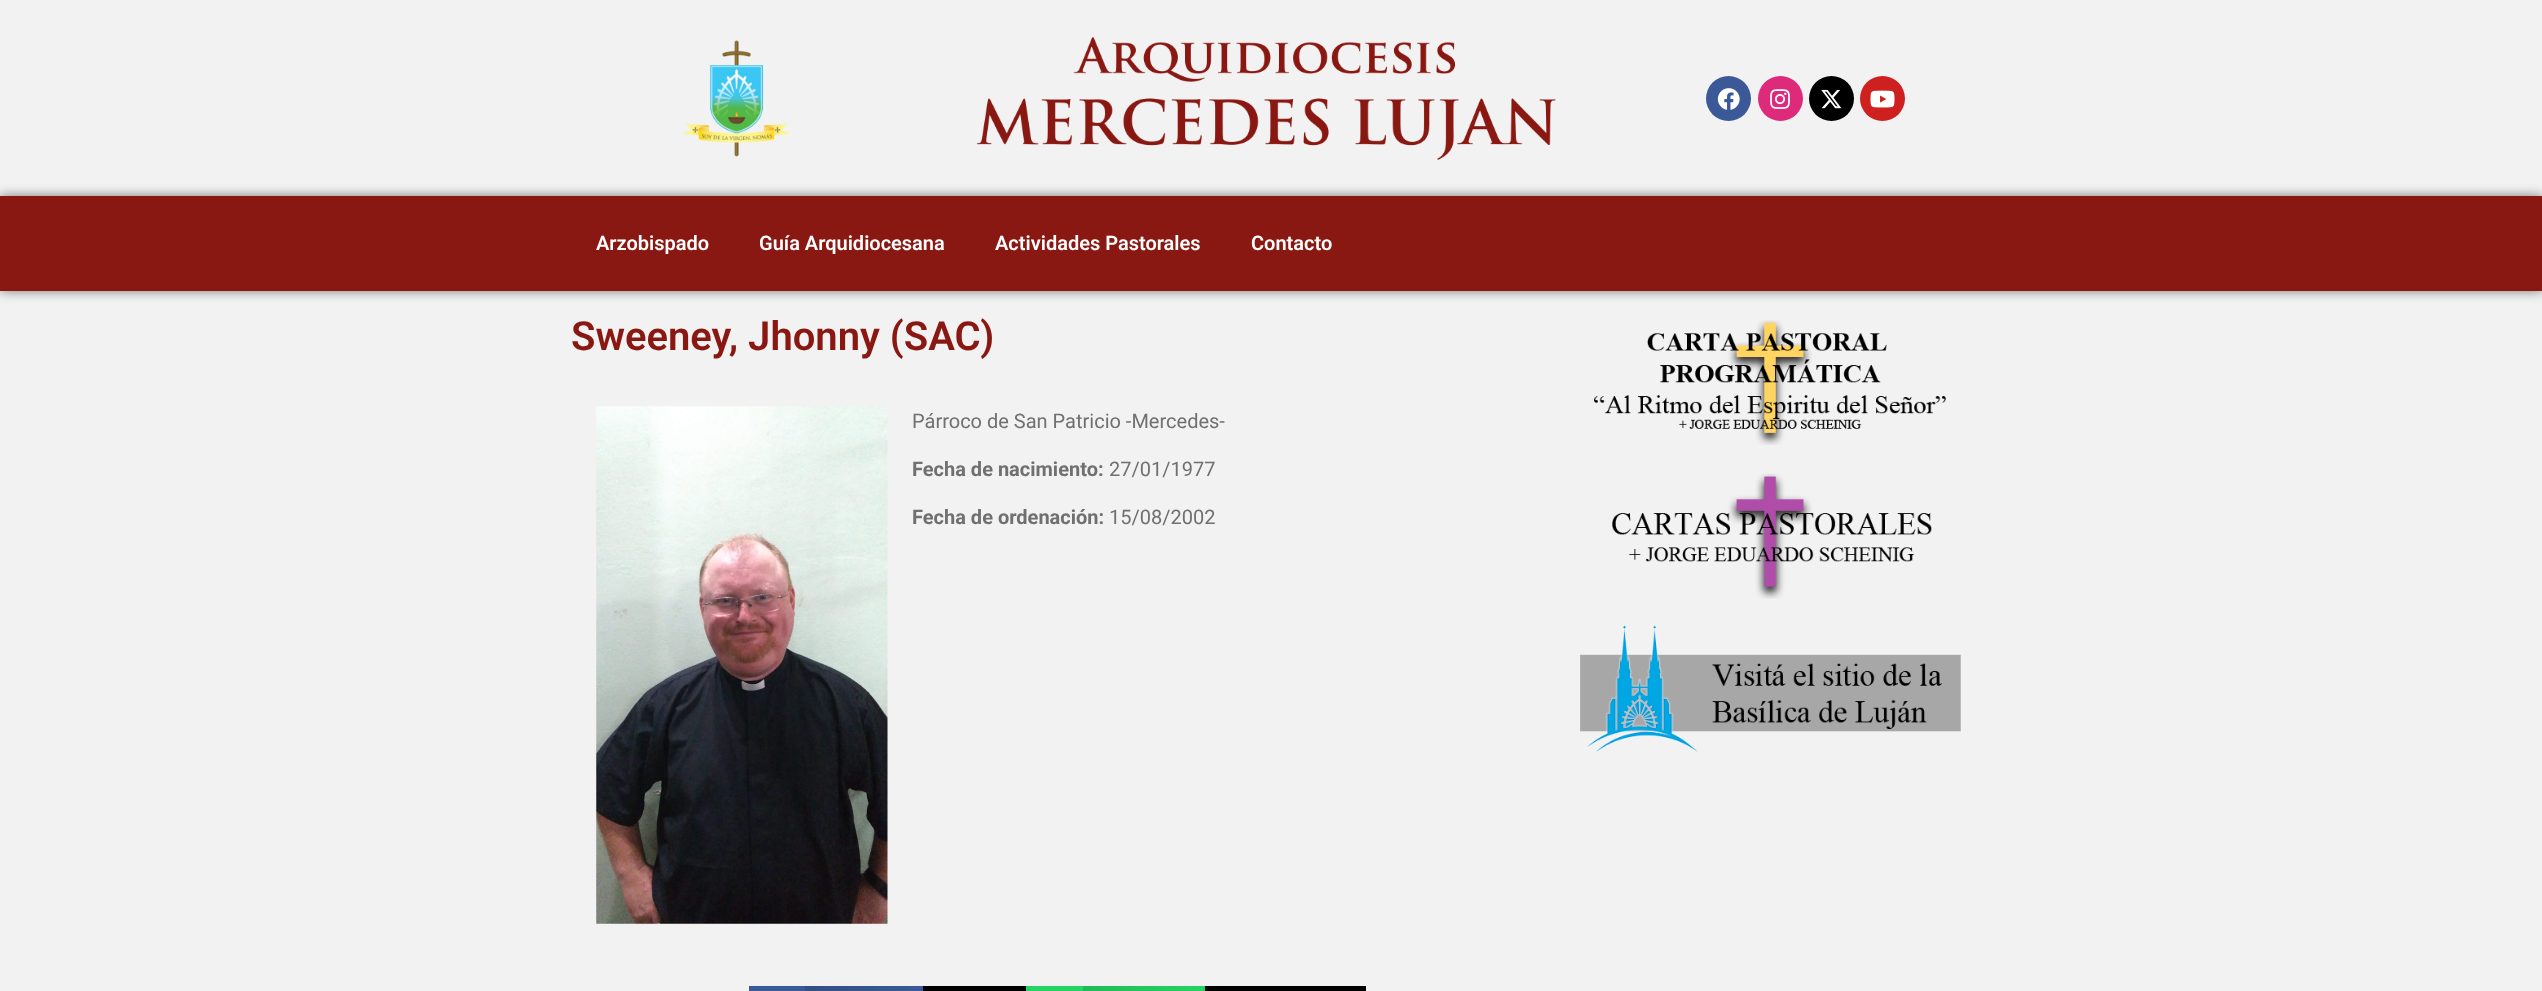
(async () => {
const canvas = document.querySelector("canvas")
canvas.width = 2542
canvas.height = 991
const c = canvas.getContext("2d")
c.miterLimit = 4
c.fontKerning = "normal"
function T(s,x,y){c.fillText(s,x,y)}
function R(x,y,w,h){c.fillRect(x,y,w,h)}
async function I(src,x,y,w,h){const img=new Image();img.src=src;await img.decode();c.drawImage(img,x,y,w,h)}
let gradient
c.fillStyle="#f2f2f2"
R(0,0,2542,991)
await I("1.png",682,40,109,117)
await I("2.png",976,37,580,123)
c.fillStyle="#3b5998"
c.beginPath()
c.arc(1728.5,98.5,22.5,0,7)
c.fill()
await I("3.png",1717,88,23,22)
c.fillStyle="#dd2a7b"
c.beginPath()
c.arc(1780.5,98.5,22.5,0,7)
c.fill()
await I("4.png",1770,89,20,20)
c.fillStyle="#000"
c.beginPath()
c.arc(1831.5,98.5,22.5,0,7)
c.fill()
await I("5.png",1821,89,21,20)
c.fillStyle="#cd201f"
c.beginPath()
c.arc(1882.5,98.5,22.5,0,7)
c.fill()
await I("6.png",1870,90,25,18)
c.fillStyle="#00000080"
c.filter="blur(6px)"
c.beginPath()
c.rect(0,196,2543,95)
c.fill()
c.filter="none"
c.fillStyle="#8a1812"
R(0,196,2542,95)
c.font="600 20px Roboto"
c.fillStyle="#fff"
T("Arzobispado",596,250)
T("Guía Arquidiocesana",759,250)
T("Actividades Pastorales",995,250)
T("Contacto",1251,250)
c.font="600 40px Roboto"
c.fillStyle="#8a1812"
T("Sweeney, Jhonny (SAC)",571,350)
await I("7.png",596,406,292,518)
c.font="20px Roboto"
c.fillStyle="#707070"
T("Párroco de San Patricio -Mercedes-",912,428)
c.font="bold 20px Roboto"
T("Fecha de nacimiento:",912,476)
c.font="20px Roboto"
T("27/01/1977",1109,476)
c.font="bold 20px Roboto"
T("Fecha de ordenación:",912,524)
c.font="20px Roboto"
T("15/08/2002",1109,524)
c.fillStyle="#3b5998"
R(749,986,56,5)
gradient = c.createLinearGradient(805,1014,923,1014)
gradient.addColorStop(0,"#344e86")
gradient.addColorStop(1,"#3b5998")
c.fillStyle = gradient
R(805,986,118,5)
c.fillStyle="#000"
R(923,986,103,5)
c.fillStyle="#25d366"
R(1026,986,57,5)
gradient = c.createLinearGradient(1083,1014,1205,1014)
gradient.addColorStop(0,"#21ba5a")
gradient.addColorStop(1,"#25d366")
c.fillStyle = gradient
R(1083,986,122,5)
c.fillStyle="#000"
R(1205,986,161,5)
await I("8.png",1594,320,352,125)
await I("9.png",1612,473,320,126)
await I("10.png",1580,625,381,127)
})()
